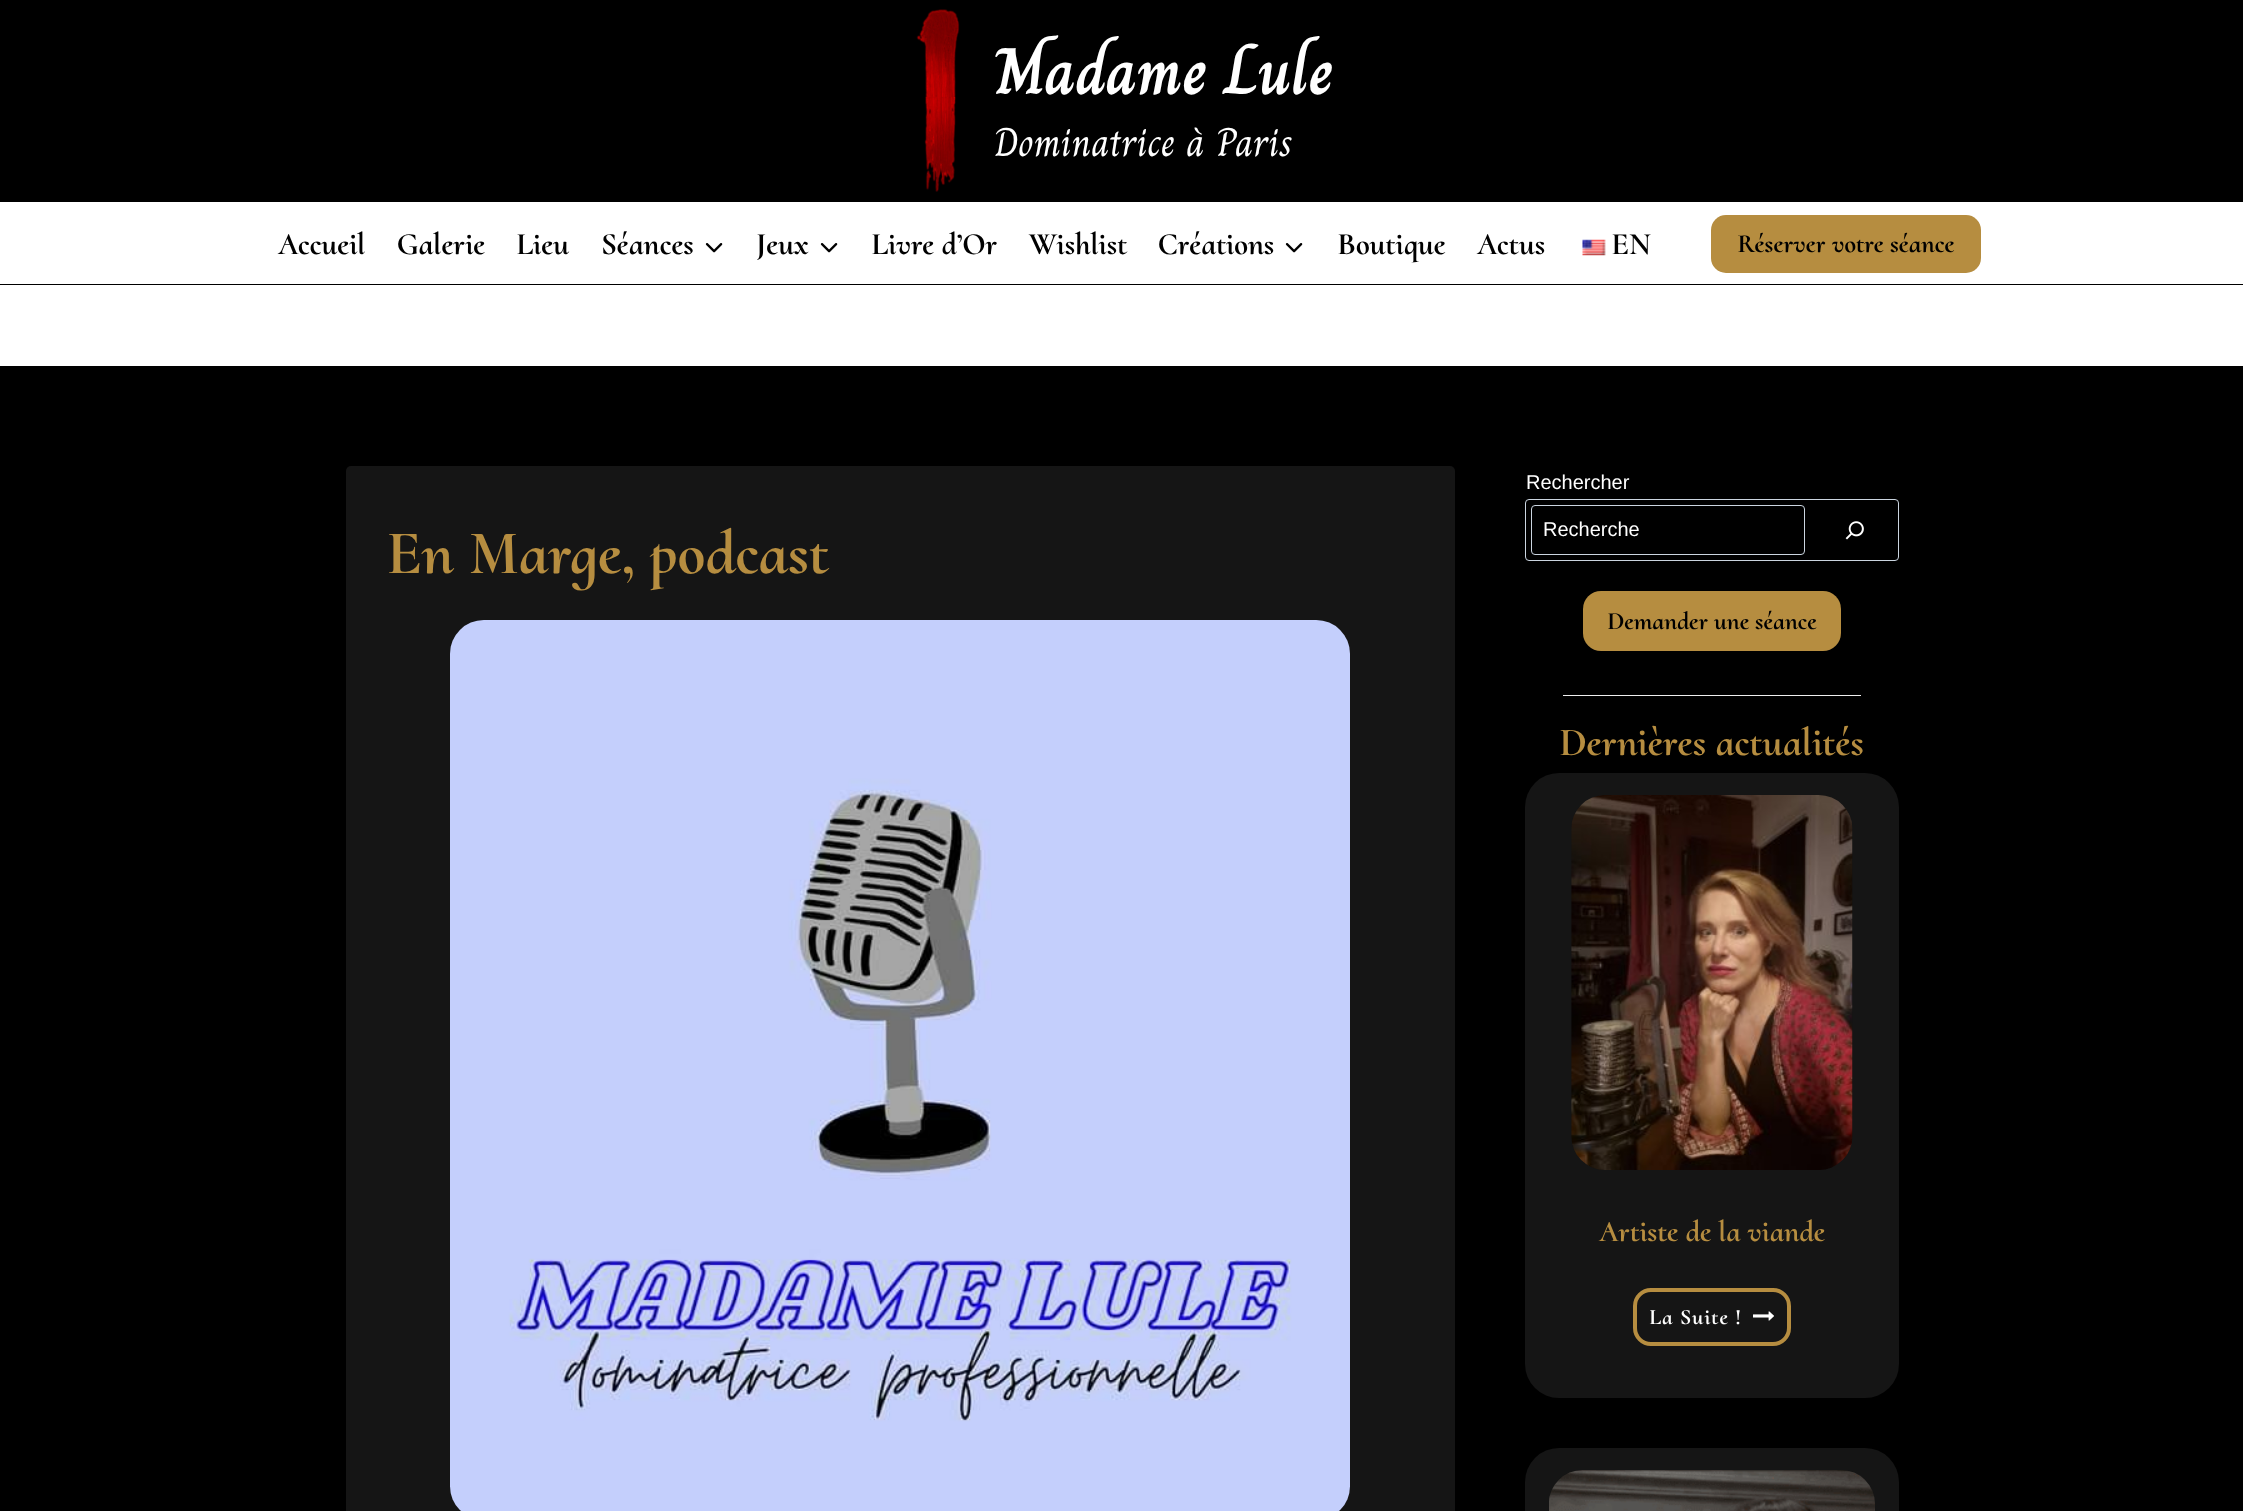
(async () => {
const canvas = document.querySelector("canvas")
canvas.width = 2243
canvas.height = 1511
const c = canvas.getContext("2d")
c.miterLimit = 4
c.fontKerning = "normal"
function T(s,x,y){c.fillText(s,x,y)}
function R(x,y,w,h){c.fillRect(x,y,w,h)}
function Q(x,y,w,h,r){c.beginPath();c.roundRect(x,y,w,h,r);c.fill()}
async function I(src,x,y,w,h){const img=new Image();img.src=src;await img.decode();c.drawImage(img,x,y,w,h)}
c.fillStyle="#000"
R(0,0,2243,1511)
c.fillStyle="#fff"
R(0,202,2243,164)
await I("1.png",916,9,44,183)
c.font="bold 66.25px Charm"
T("Madame Lule",994,94)
c.font="40px Charm"
T("Dominatrice à Paris",994,156)
c.fillStyle="#000"
R(0,284,2243,1)
c.font="bold 31.25px Cormorant Upright"
T("Accueil",278,254)
T("Galerie",397,254)
T("Lieu",516,254)
T("Séances",601,254)
await I("2.png",705,243,18,10)
T("Jeux",756,254)
await I("2.png",820,243,18,10)
T("Livre d’Or",871,254)
T("Wishlist",1029,254)
T("Créations",1158,254)
await I("2.png",1285,243,18,10)
T("Boutique",1337,254)
T("Actus",1477,254)
await I("3.png",1582,239,24,17)
T("EN",1611,254)
c.fillStyle="#b68d40"
Q(1711,215,270,58,15)
c.font="bold 26.25px Cormorant Upright"
c.fillStyle="#000"
T("Réserver votre séance",1737,252)
c.fillStyle="#151515"
Q(346,466,1109,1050,5)
c.font="bold 62.5px Cormorant Upright"
c.fillStyle="#b68d40"
T("En Marge, podcast",386,573)
await I("4.png",450,620,900,891)
c.font="20px Liberation Sans"
c.fillStyle="#fff"
T("Rechercher",1526,489)
c.beginPath()
c.roundRect(1525.5,499.5,373,61,3.5)
c.strokeStyle="#cbd5e0"
c.stroke()
c.beginPath()
c.roundRect(1531.5,505.5,273,49,3.5)
c.stroke()
T("Recherche",1543,536)
await I("5.png",1845,521,19,19)
c.fillStyle="#b68d40"
Q(1583,591,258,60,18)
c.font="bold 25px Cormorant Upright"
c.fillStyle="#000"
T("Demander une séance",1607,629)
c.fillStyle="#eee"
R(1563,695,298,1)
c.font="bold 40px Cormorant Upright"
c.fillStyle="#b68d40"
T("Dernières actualités",1559,755)
c.fillStyle="#151515"
Q(1525,773,374,625,34)
await I("6.png",1571,795,282,375)
c.font="bold 30px Cormorant Upright"
c.fillStyle="#b68d40"
T("Artiste de la viande",1599,1241)
c.beginPath()
c.roundRect(1635,1290,154,54,16)
c.strokeStyle="#b68d40"
c.lineWidth=4
c.stroke()
c.letterSpacing="1.1px"
c.font="bold 22px Cormorant Upright"
c.fillStyle="#fff"
T("La Suite !",1649,1324)
await I("7.png",1753,1311,21,10)
c.fillStyle="#151515"
Q(1525,1448,374,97,34)
await I("8.png",1549,1470,326,41)
})()
